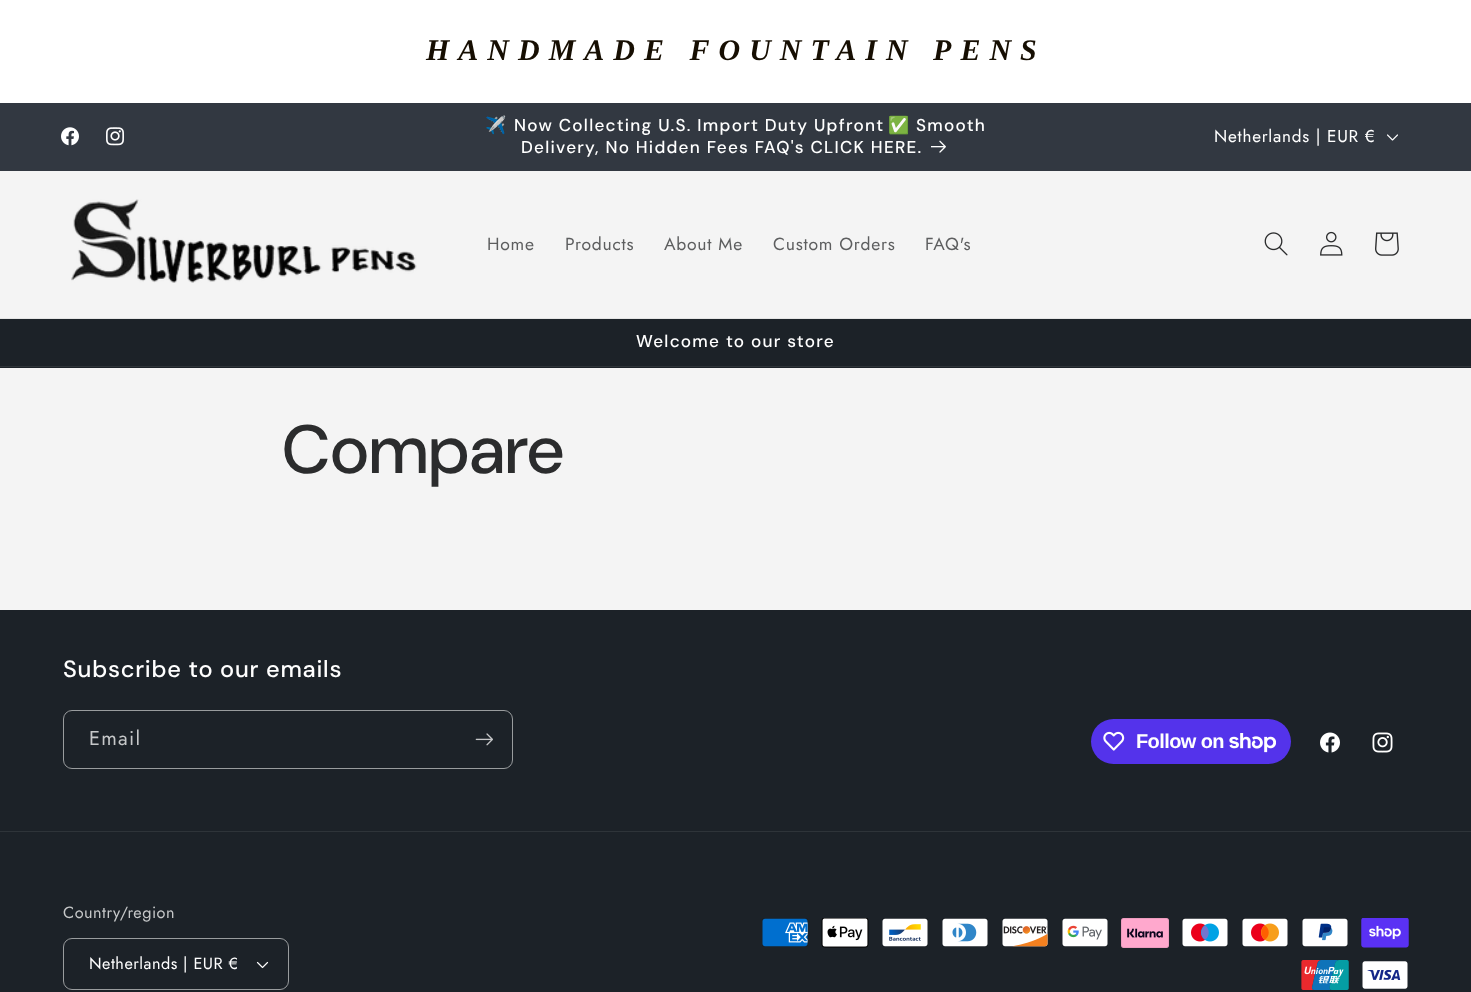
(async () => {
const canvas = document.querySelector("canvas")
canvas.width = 1471
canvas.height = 992
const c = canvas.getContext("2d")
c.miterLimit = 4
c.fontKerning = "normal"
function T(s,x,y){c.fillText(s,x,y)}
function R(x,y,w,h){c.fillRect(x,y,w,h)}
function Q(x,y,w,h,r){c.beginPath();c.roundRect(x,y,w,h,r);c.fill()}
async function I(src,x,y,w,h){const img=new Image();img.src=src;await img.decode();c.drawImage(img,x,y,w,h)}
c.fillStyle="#f4f4f4"
R(0,0,1471,992)
c.fillStyle="#fff"
R(0,0,1471,103)
c.letterSpacing="9px"
c.font="italic bold 30px Liberation Serif"
c.fillStyle="#160e02"
T("HANDMADE FOUNTAIN PENS",426,60)
c.fillStyle="#323841"
R(0,103,1471,68)
await I("1.png",61,127,18,19)
await I("2.png",106,127,18,19)
c.letterSpacing="1.25px"
c.font="17.1px Noto Color Emoji"
c.fillStyle="#fff"
T("✈️",485,131)
c.font="500 17.1px DM Sans"
T("Now Collecting U.S. Import Duty Upfront",514,131)
c.font="17.1px Noto Color Emoji"
T("✅",888,131)
c.font="500 17.1px DM Sans"
T("Smooth",916,131)
T("Delivery, No Hidden Fees FAQ's CLICK HERE.",521,153)
await I("3.png",931,140,15,13)
c.letterSpacing="0.75px"
c.font="17.1px Jost"
T("Netherlands | EUR €",1214,142)
await I("4.png",1387,134,11,7)
c.fillStyle="#e4e4e4"
R(0,318,1471,1)
await I("5.png",71,199,346,84)
c.font="17.5px Jost"
c.fillStyle="#5d5e5f"
T("Home",487,250)
T("Products",565,250)
T("About Me",664,250)
T("Custom Orders",773,250)
T("FAQ's",925,250)
await I("6.png",1264,232,24,24)
await I("7.png",1320,231,23,25)
await I("8.png",1375,232,24,24)
c.fillStyle="#1c2228"
R(0,319,1471,49)
c.fillStyle="#2e3439"
R(0,366,1471,1)
c.letterSpacing="1.25px"
c.font="500 17.1px DM Sans"
c.fillStyle="#fff"
T("Welcome to our store",636,347)
c.letterSpacing="0.75px"
c.font="500 68.25px 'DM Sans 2'"
c.fillStyle="#2b2c2d"
T("Compare",282,473)
c.fillStyle="#1c2228"
R(0,610,1471,382)
c.font="500 23.6px 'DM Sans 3'"
c.fillStyle="#fff"
T("Subscribe to our emails",63,677)
c.beginPath()
c.roundRect(63.5,710.5,449,58,8.5)
c.strokeStyle="#999c9e"
c.stroke()
c.letterSpacing="1.25px"
c.font="20px Jost"
c.fillStyle="#c6c8c9"
T("Email",89,745)
await I("9.png",475,733,18,13)
c.fillStyle="#5433eb"
Q(1091,719,200,45,22.5)
await I("10.png",1103,731,22,20)
c.letterSpacing="-0.6px"
c.font="bold 20px Liberation Sans"
c.fillStyle="#fff"
T("Follow on",1136,748)
await I("11.png",1229,733,47,20)
await I("12.png",1320,732,20,21)
await I("13.png",1372,732,21,21)
c.fillStyle="#2e3439"
R(0,831,1471,1)
c.letterSpacing="0.5px"
c.font="16.25px Jost"
c.fillStyle="#c6c8c9"
T("Country/region",63,918)
await I("14.png",256,961,13,8)
c.beginPath()
c.roundRect(63.5,938.5,225,51,8.5)
c.stroke()
c.fillStyle="#fff"
T("Netherlands | EUR €",89,969)
await I("15.png",762,918,46,29)
await I("16.png",821,918,48,30)
await I("17.png",882,918,46,29)
await I("18.png",942,918,46,29)
await I("19.png",1002,918,46,29)
await I("20.png",1062,918,46,29)
await I("21.png",1121,918,48,30)
await I("22.png",1182,918,46,29)
await I("23.png",1242,918,46,29)
await I("24.png",1302,918,46,29)
await I("25.png",1361,918,48,30)
await I("26.png",1301,960,48,30)
await I("27.png",1362,961,46,28)
})()
